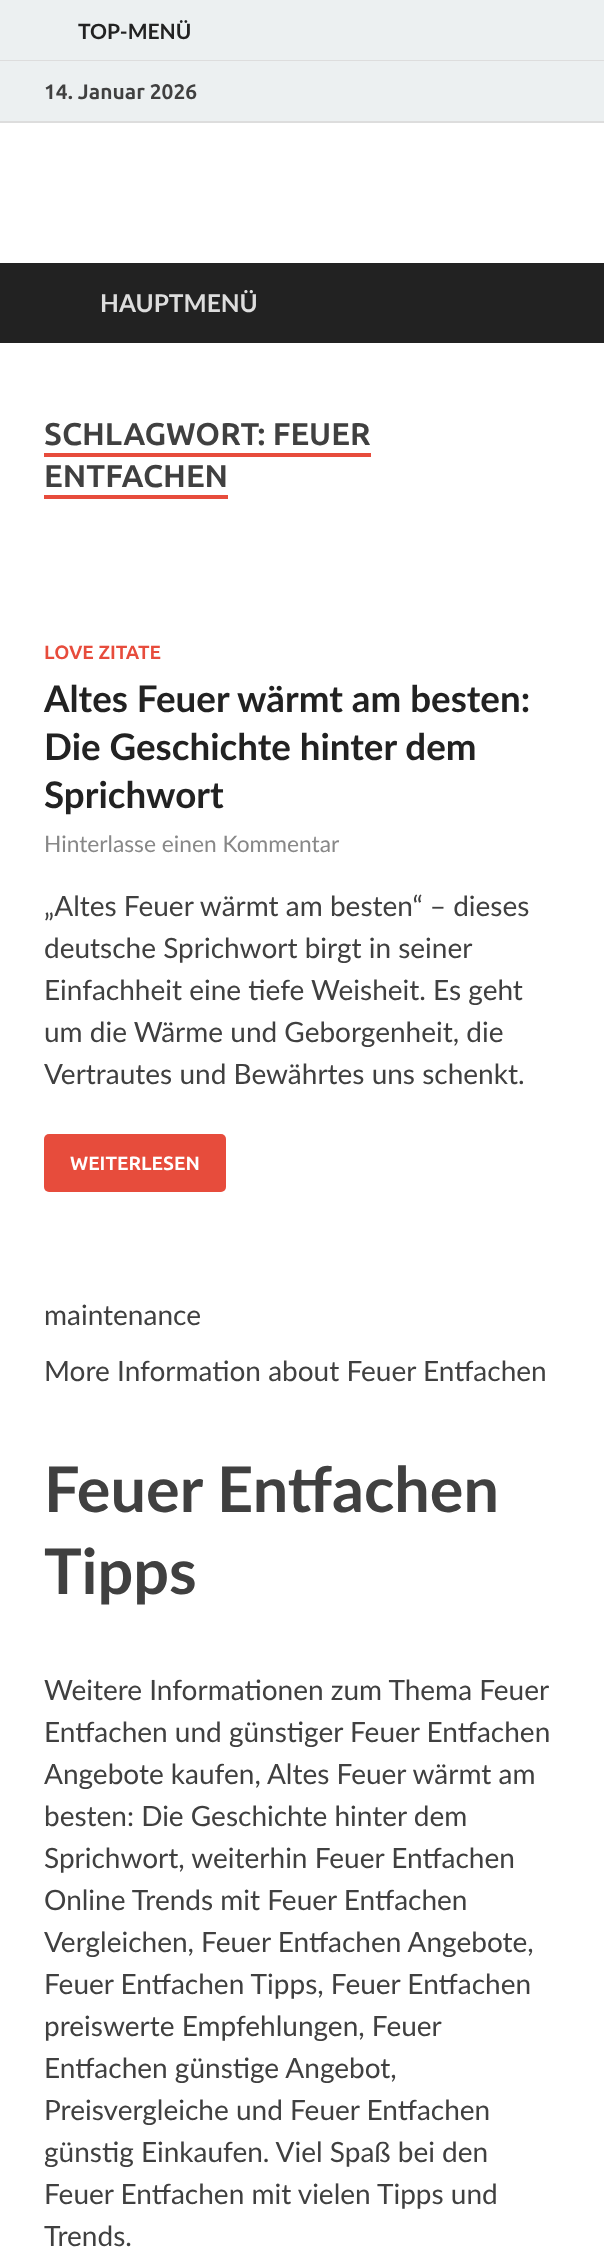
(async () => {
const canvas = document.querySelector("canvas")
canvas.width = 604
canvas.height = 2257
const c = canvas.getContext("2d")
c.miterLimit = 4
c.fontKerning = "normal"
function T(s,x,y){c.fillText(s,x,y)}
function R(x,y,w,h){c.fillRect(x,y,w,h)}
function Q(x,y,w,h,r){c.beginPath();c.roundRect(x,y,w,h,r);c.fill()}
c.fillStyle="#fff"
R(0,0,604,2257)
c.fillStyle="#ecf0f1"
R(0,0,604,60)
c.fillStyle="#ddd"
R(0,60,604,1)
c.font="bold 21px Lato"
c.fillStyle="#222"
T("TOP-MENÜ",78,39)
c.fillStyle="#ecf0f1"
R(0,61,604,60)
c.fillStyle="#ddd"
R(0,121,604,2)
c.font="bold 21px Ubuntu"
c.fillStyle="#404040"
T("14. Januar 2026",44,99)
c.fillStyle="#222"
R(0,263,604,80)
c.font="bold 24.5px Lato"
c.fillStyle="#ddd"
T("HAUPTMENÜ",100,312)
c.font="bold 31.5px Ubuntu"
c.fillStyle="#404040"
T("SCHLAGWORT: FEUER",44,445)
c.fillStyle="#e74c3c"
R(44,453,327,4)
c.fillStyle="#404040"
T("ENTFACHEN",44,487)
c.fillStyle="#e74c3c"
R(44,495,184,4)
c.font="bold 19.25px Ubuntu"
T("LOVE ZITATE",44,659)
c.font="bold 36.75px Lato"
c.fillStyle="#222"
T("Altes Feuer wärmt am besten:",44,712)
T("Die Geschichte hinter dem",44,760)
T("Sprichwort",44,808)
c.font="22.75px Lato"
c.fillStyle="#888"
T("Hinterlasse einen Kommentar",44,852)
c.font="28px Lato"
c.fillStyle="#404040"
T("„Altes Feuer wärmt am besten“ – dieses",44,916)
T("deutsche Sprichwort birgt in seiner",44,958)
T("Einfachheit eine tiefe Weisheit. Es geht",44,1000)
T("um die Wärme und Geborgenheit, die",44,1042)
T("Vertrautes und Bewährtes uns schenkt.",44,1084)
c.fillStyle="#e74c3c"
Q(44,1134,182,58,5)
c.font="bold 19.25px Ubuntu"
c.fillStyle="#fff"
T("WEITERLESEN",70,1170)
c.font="28px Lato"
c.fillStyle="#404040"
T("maintenance",44,1325)
T("More Information about Feuer Entfachen",44,1381)
c.font="bold 63px Lato"
T("Feuer Entfachen",44,1512)
T("Tipps",44,1594)
c.font="28px Lato"
T("Weitere Informationen zum Thema Feuer",44,1700)
T("Entfachen und günstiger Feuer Entfachen",44,1742)
T("Angebote kaufen, Altes Feuer wärmt am",44,1784)
T("besten: Die Geschichte hinter dem",44,1826)
T("Sprichwort, weiterhin Feuer Entfachen",44,1868)
T("Online Trends mit Feuer Entfachen",44,1910)
T("Vergleichen, Feuer Entfachen Angebote,",44,1952)
T("Feuer Entfachen Tipps, Feuer Entfachen",44,1994)
T("preiswerte Empfehlungen, Feuer",44,2036)
T("Entfachen günstige Angebot,",44,2078)
T("Preisvergleiche und Feuer Entfachen",44,2120)
T("günstig Einkaufen. Viel Spaß bei den",44,2162)
T("Feuer Entfachen mit vielen Tipps und",44,2204)
T("Trends.",44,2246)
})()
